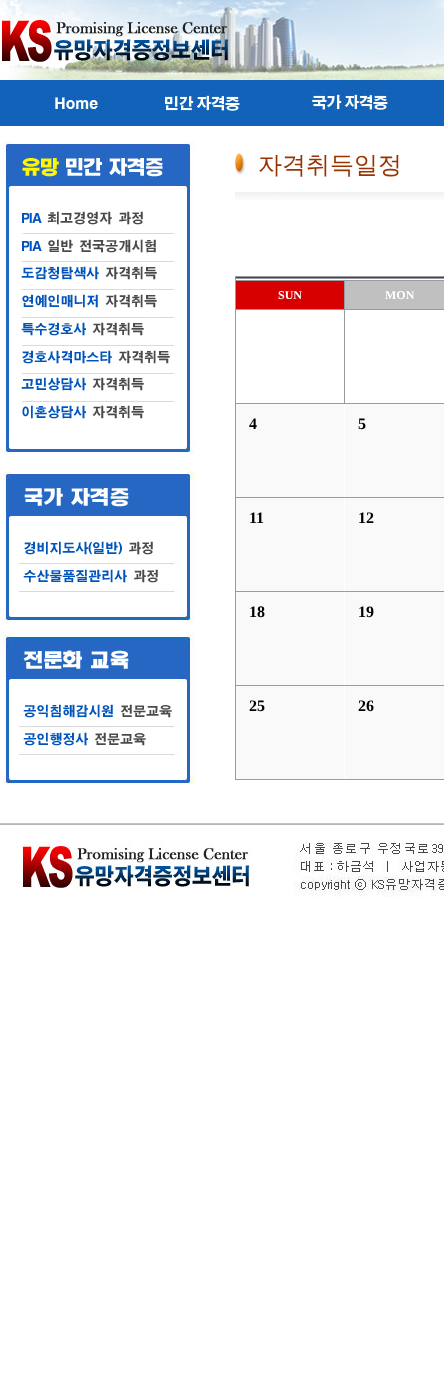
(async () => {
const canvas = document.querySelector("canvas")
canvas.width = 444
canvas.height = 1384
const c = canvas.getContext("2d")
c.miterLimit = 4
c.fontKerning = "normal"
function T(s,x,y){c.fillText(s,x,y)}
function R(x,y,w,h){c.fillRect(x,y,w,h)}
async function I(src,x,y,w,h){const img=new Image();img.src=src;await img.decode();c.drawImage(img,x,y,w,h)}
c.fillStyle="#fff"
R(0,0,444,1384)
await I("1.png",0,0,444,80)
await I("2.png",2,20,227,42)
c.fillStyle="#1262b9"
R(0,80,444,46)
await I("3.png",49,96,56,16)
await I("4.png",163,92,80,20)
await I("5.png",307,88,88,24)
await I("6.png",3,142,192,312)
await I("7.png",3,472,192,312)
await I("8.png",235,153,11,22)
c.font="500 24px WenQuanYi Zen Hei"
c.fillStyle="#930"
T("자격취득일정",258,173)
await I("9.png",235,192,209,8)
c.fillStyle="#9a9aa0"
R(235,276,209,504)
c.fillStyle="#1c546f"
R(236,277,208,1)
c.fillStyle="#fff"
R(236,279,208,1)
c.fillStyle="#d70000"
R(236,281,108,28)
c.font="bold 12px Liberation Serif"
c.fillStyle="#fff"
T("SUN",278,299)
c.fillStyle="#c0c0c0"
R(345,281,99,28)
c.fillStyle="#fff"
T("MON",385,299)
R(236,310,108,93)
R(345,310,99,93)
R(344,404,1,93)
c.fillStyle="#f9f9f9"
R(236,404,108,93)
c.font="bold 16px Liberation Serif"
c.fillStyle="#000001"
T("4",249,429)
c.fillStyle="#f9f9f9"
R(345,404,99,93)
c.fillStyle="#000001"
T("5",358,429)
c.fillStyle="#fff"
R(344,498,1,93)
c.fillStyle="#f9f9f9"
R(236,498,108,93)
c.fillStyle="#000001"
T("11",249,523)
c.fillStyle="#f9f9f9"
R(345,498,99,93)
c.fillStyle="#000001"
T("12",358,523)
c.fillStyle="#fff"
R(344,592,1,93)
c.fillStyle="#f9f9f9"
R(236,592,108,93)
c.fillStyle="#000001"
T("18",249,617)
c.fillStyle="#f9f9f9"
R(345,592,99,93)
c.fillStyle="#000001"
T("19",358,617)
c.fillStyle="#fff"
R(344,686,1,93)
c.fillStyle="#f9f9f9"
R(236,686,108,93)
c.fillStyle="#000001"
T("25",249,711)
c.fillStyle="#f9f9f9"
R(345,686,99,93)
c.fillStyle="#000001"
T("26",358,711)
c.fillStyle="#c4c4c4"
R(0,823,444,1)
c.fillStyle="#b5b5b5"
R(0,824,444,1)
await I("10.png",22,841,422,56)
})()
